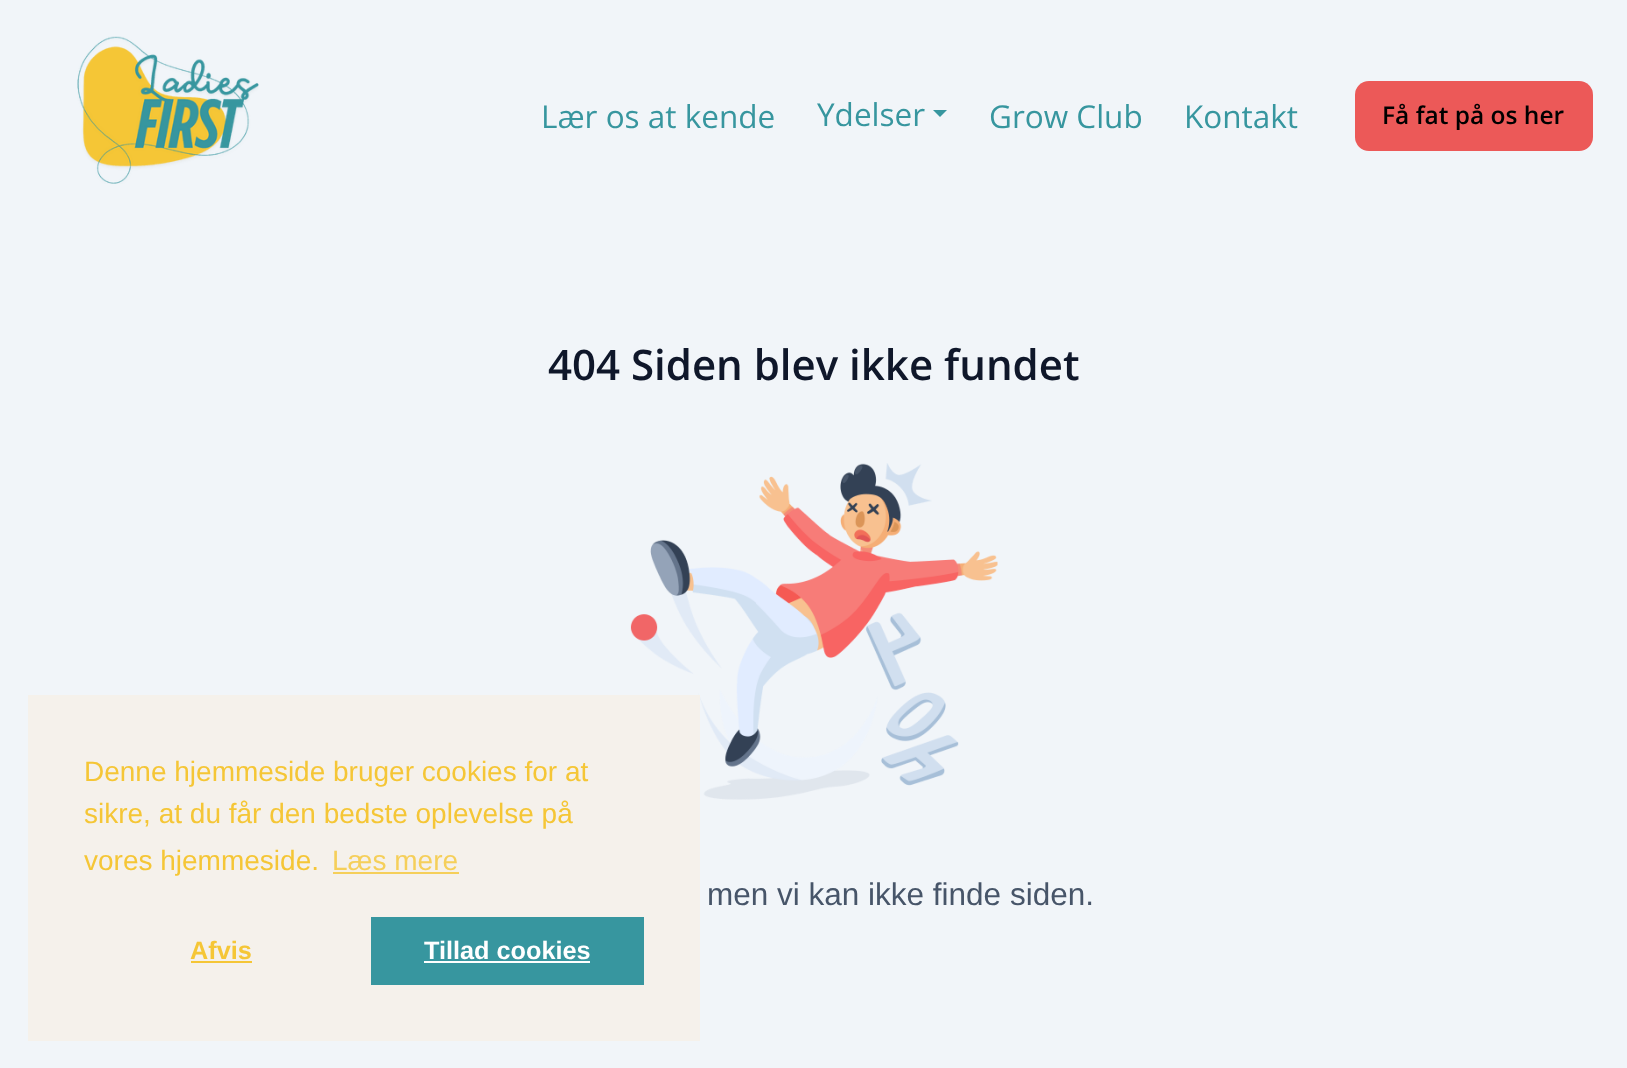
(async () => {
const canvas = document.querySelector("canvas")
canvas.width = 1627
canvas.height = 1068
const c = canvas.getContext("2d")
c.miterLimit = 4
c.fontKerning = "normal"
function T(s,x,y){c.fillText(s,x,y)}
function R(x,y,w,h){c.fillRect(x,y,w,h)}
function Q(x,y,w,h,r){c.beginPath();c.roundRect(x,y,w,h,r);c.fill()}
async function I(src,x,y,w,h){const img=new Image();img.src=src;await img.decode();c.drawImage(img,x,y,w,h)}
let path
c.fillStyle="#f1f5f9"
R(0,0,1627,1068)
await I("2.png",630,463,368,337)
c.fillStyle="#f5f1eb"
R(28,695,672,346)
c.font="28px Liberation Sans"
c.fillStyle="#f5c636"
T("Denne hjemmeside bruger cookies for at",84,781)
T("sikre, at du får den bedste oplevelse på",84,823)
T("vores hjemmeside.",84,870)
c.fillStyle="#f5cf5a"
T("Læs mere",332,870)
R(333,872,126,2)
c.font="bold 25.25px Liberation Sans"
c.fillStyle="#f5c636"
T("Afvis",190,959)
R(191,961,61,2)
c.fillStyle="#37969f"
R(371,917,273,68)
c.fillStyle="#fff"
T("Tillad cookies",424,959)
R(424,961,166,2)
await I("1.png",77,36,182,148)
c.font="31.5px Open Sans"
c.fillStyle="#37969f"
T("Lær os at kende",541,128)
T("Ydelser",817,126)
path = new Path2D("M933 110h14l-7 7z")
c.fill(path)
T("Grow Club",989,128)
T("Kontakt",1184,128)
c.fillStyle="#ec5958"
Q(1355,81,238,70,14)
c.font="600 24.5px Open Sans"
c.fillStyle="#000"
T("Få fat på os her",1382,124)
c.font="600 42px Open Sans"
c.fillStyle="#0f172a"
T("404 Siden blev ikke fundet",548,380)
c.font="31.5px Liberation Sans"
c.fillStyle="#475569"
T("men vi kan ikke finde siden.",707,905)
})()
